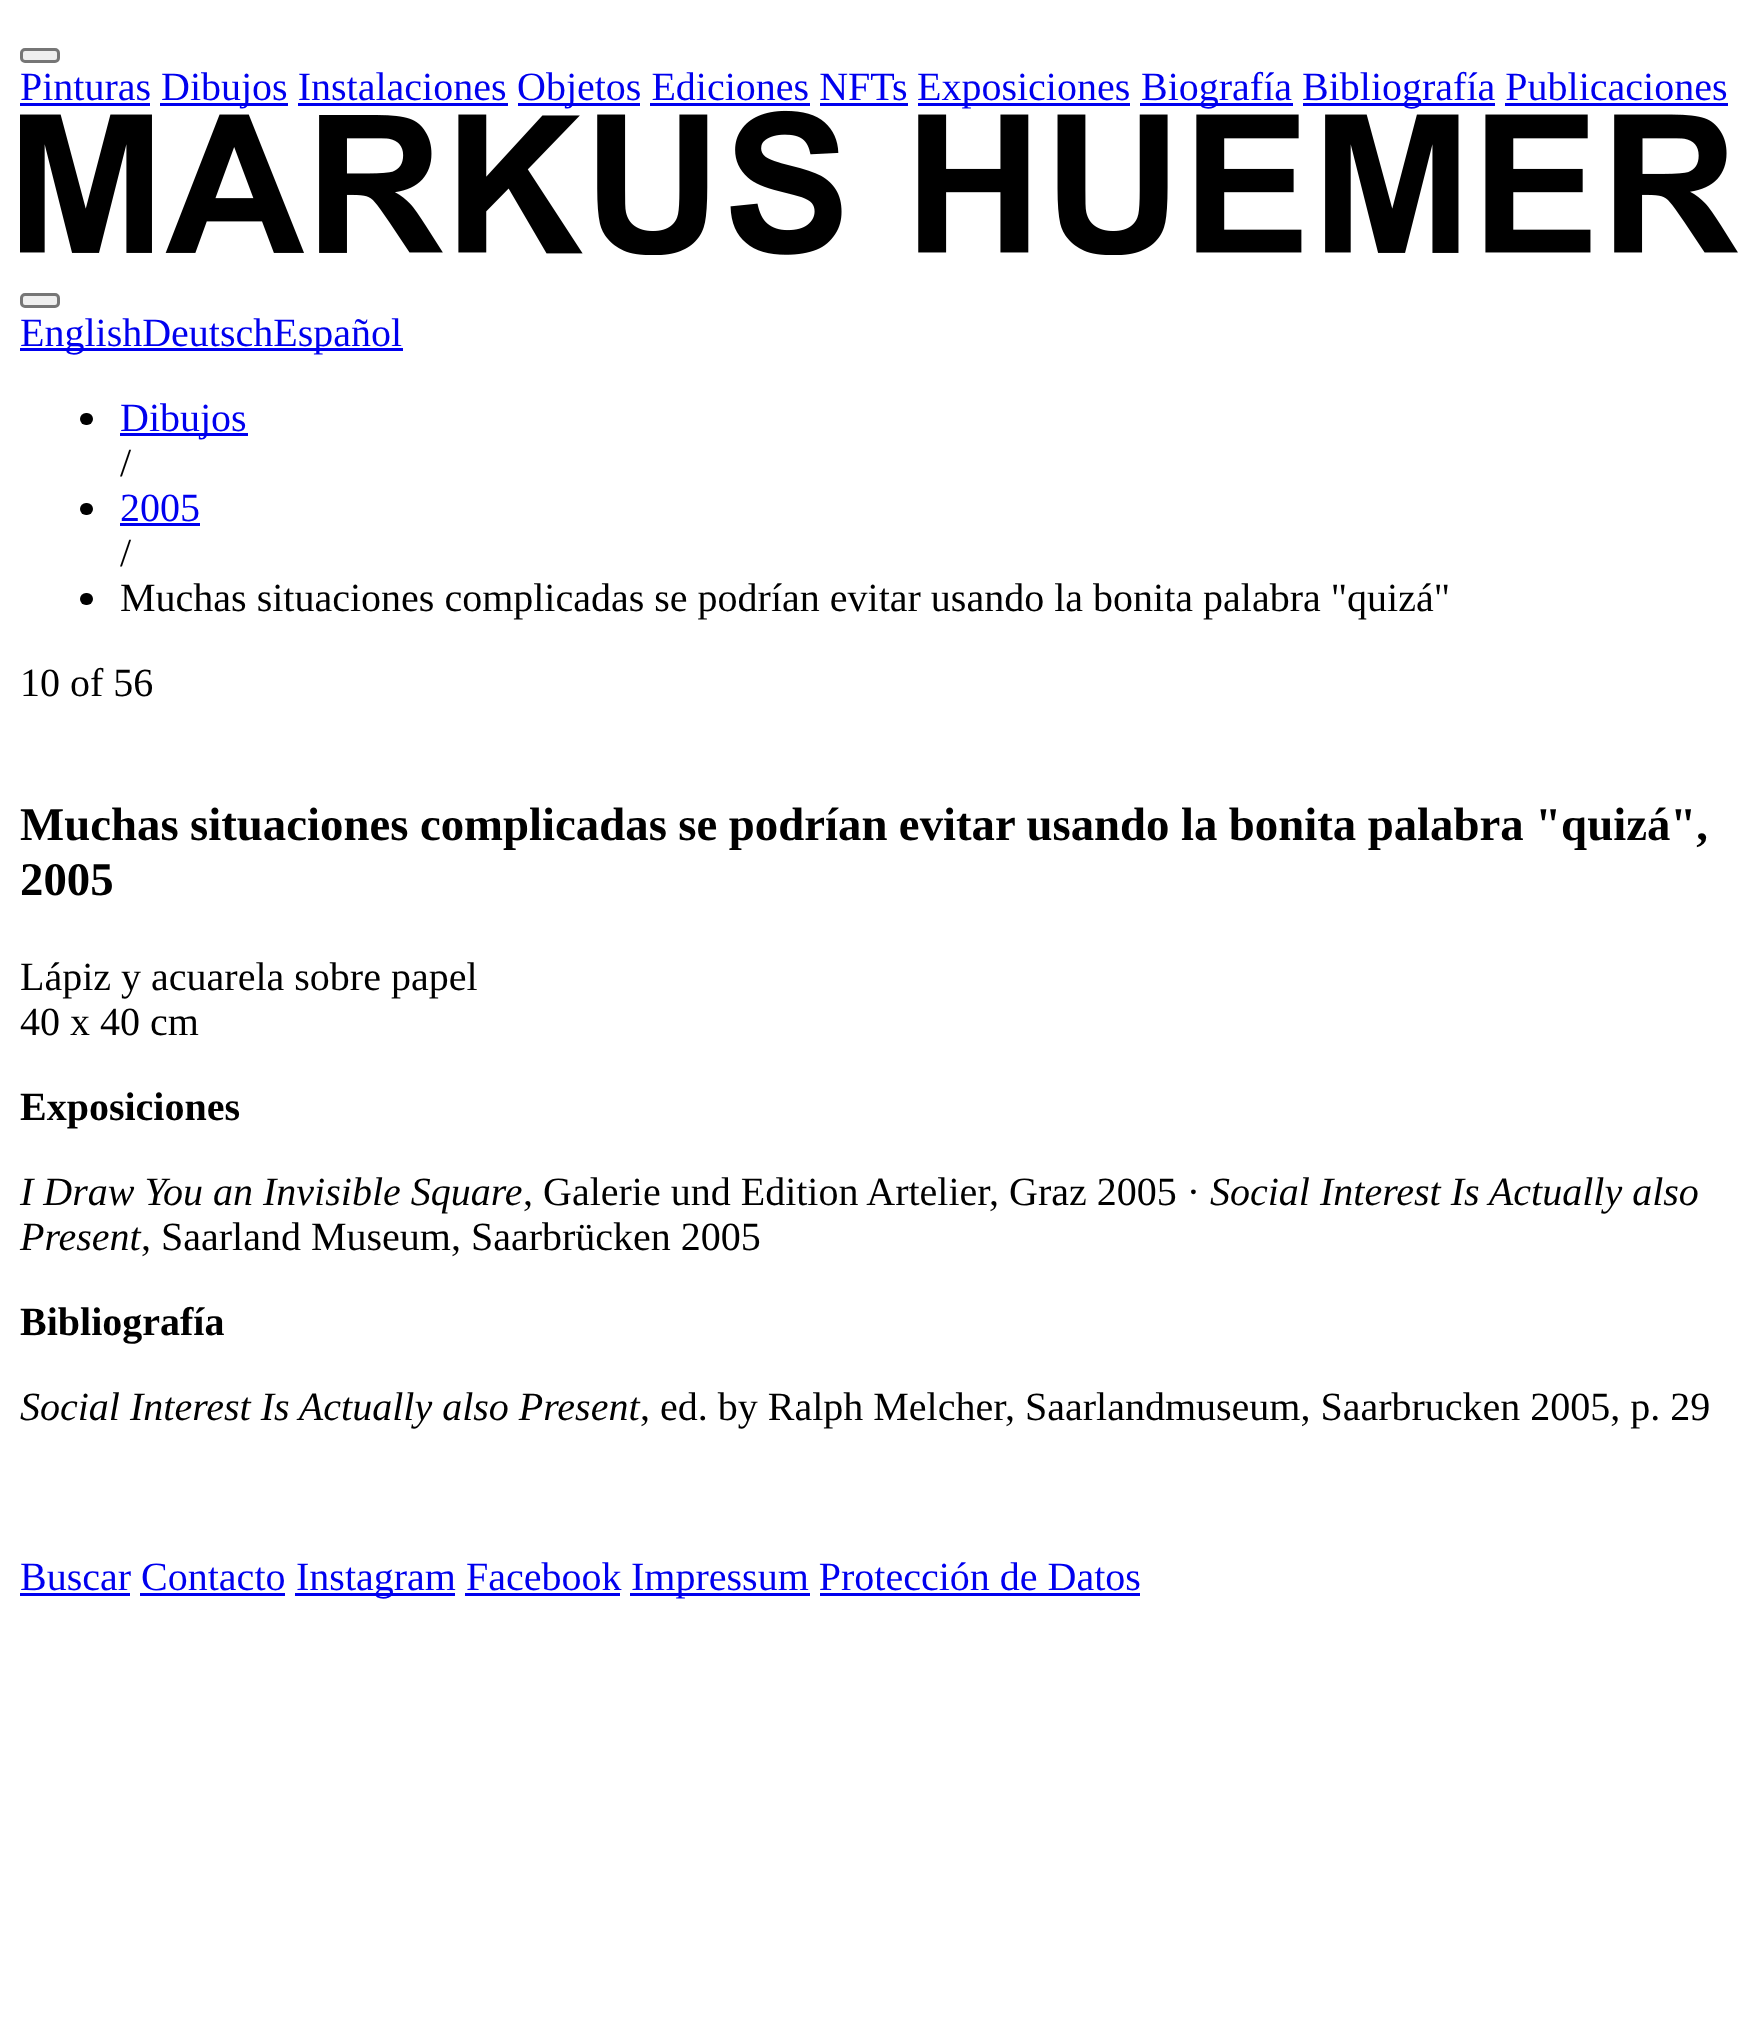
(async () => {
const canvas = document.querySelector("canvas")
canvas.width = 1756
canvas.height = 2033
const c = canvas.getContext("2d")
c.miterLimit = 4
c.fontKerning = "normal"
function T(s,x,y){c.fillText(s,x,y)}
function R(x,y,w,h){c.fillRect(x,y,w,h)}
function Q(x,y,w,h,r){c.beginPath();c.roundRect(x,y,w,h,r);c.fill()}
async function I(src,x,y,w,h){const img=new Image();img.src=src;await img.decode();c.drawImage(img,x,y,w,h)}
c.fillStyle="#fff"
R(0,0,1756,2033)
c.fillStyle="#efefef"
c.beginPath()
c.roundRect(21.5,49.5,37,12,3.5)
c.fill()
c.strokeStyle="#767676"
c.lineWidth=3
c.stroke()
c.font="40px Liberation Serif"
c.fillStyle="#00e"
T("Pinturas",20,100)
R(20,103,130,3)
R(160,103,128,3)
T("Dibujos Instalaciones",161,100)
R(518,103,122,3)
T("Objetos Ediciones NFTs",517,100)
R(918,103,212,3)
T("Exposiciones",917,100)
R(1140,103,153,3)
T("Biografía",1141,100)
R(1303,103,192,3)
T("Bibliografía Publicaciones",1302,100)
R(298,103,210,3)
R(650,103,160,3)
R(820,103,88,3)
R(1505,103,223,3)
await I("1.png",20,110,1718,145)
c.fillStyle="#efefef"
c.beginPath()
c.roundRect(21.5,294.5,37,12,3.5)
c.fill()
c.stroke()
c.fillStyle="#00e"
R(20,348,383,3)
T("EnglishDeutschEspañol",20,346)
c.fillStyle="#000"
Q(80,413,13,12,6)
c.fillStyle="#00e"
R(120,433,128,3)
T("Dibujos",120,431)
c.fillStyle="#000"
T("/",120,476)
Q(80,503,13,12,6)
c.fillStyle="#00e"
T("2005",120,521)
R(120,523,80,3)
c.fillStyle="#000"
T("/",120,566)
Q(80,593,13,12,6)
T("Muchas situaciones complicadas se podrían evitar usando la bonita palabra \"quizá\"",120,611)
T("10 of 56",20,696)
c.wordSpacing="-0.25px"
c.font="bold 46.8px Liberation Serif"
T("Muchas situaciones complicadas se podrían evitar usando la bonita palabra \"quizá\",",20,840)
c.wordSpacing="0px"
T("2005",20,895)
c.font="40px Liberation Serif"
T("Lápiz y acuarela sobre papel",20,990)
T("40 x 40 cm",20,1035)
c.font="bold 40px Liberation Serif"
T("Exposiciones",20,1120)
c.font="italic 40px Liberation Serif"
T("I Draw You an Invisible Square",20,1205)
c.font="40px Liberation Serif"
T(", Galerie und Edition Artelier, Graz 2005 ·",523,1205)
c.font="italic 40px Liberation Serif"
T("Social Interest Is Actually also",1210,1205)
T("Present",20,1250)
c.font="40px Liberation Serif"
T(", Saarland Museum, Saarbrücken 2005",141,1250)
c.font="bold 40px Liberation Serif"
T("Bibliografía",20,1335)
c.font="italic 40px Liberation Serif"
T("Social Interest Is Actually also Present",20,1420)
c.font="40px Liberation Serif"
T(", ed. by Ralph Melcher, Saarlandmuseum, Saarbrucken 2005, p. 29",640,1420)
c.fillStyle="#00e"
T("Buscar Contacto",20,1590)
R(20,1593,110,3)
R(295,1593,160,3)
T("Instagram Facebook",296,1590)
R(630,1593,180,3)
T("Impressum Protección de Datos",631,1590)
R(140,1593,145,3)
R(465,1593,155,3)
R(820,1593,320,3)
})()
